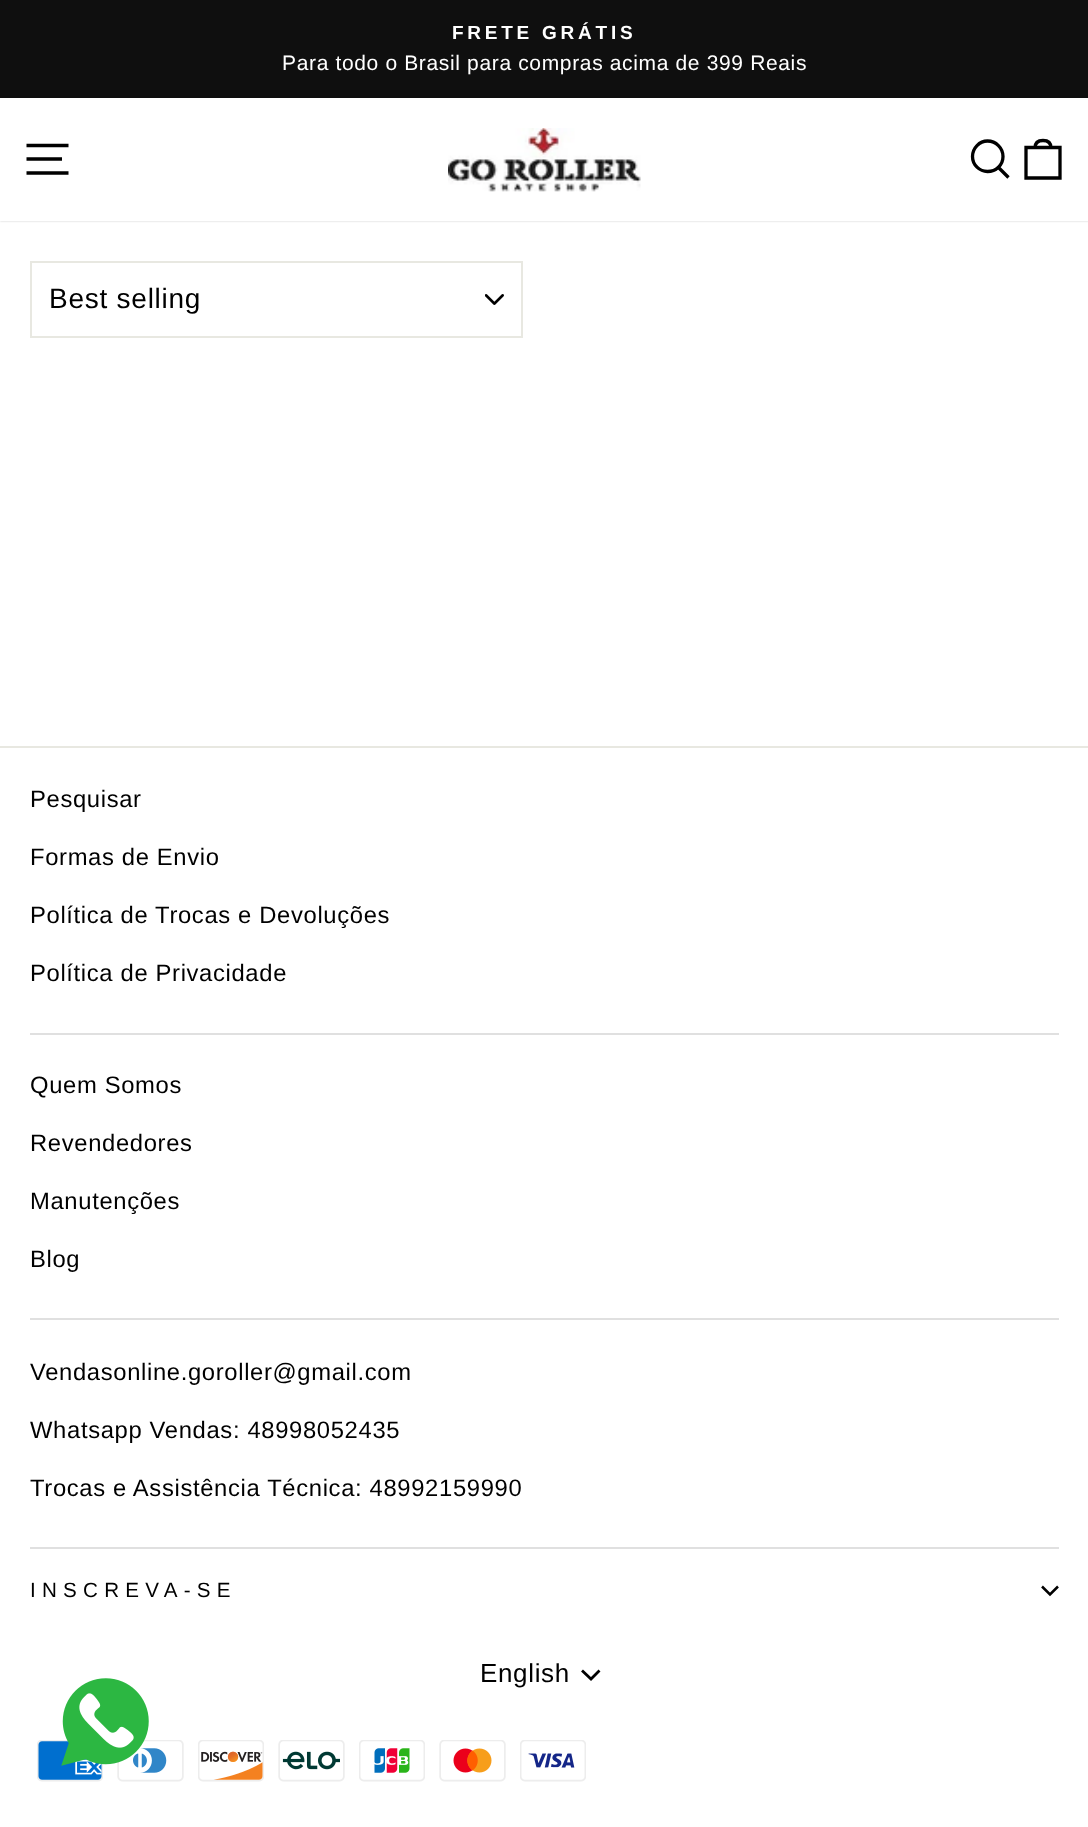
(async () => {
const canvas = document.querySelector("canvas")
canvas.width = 1088
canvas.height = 1827
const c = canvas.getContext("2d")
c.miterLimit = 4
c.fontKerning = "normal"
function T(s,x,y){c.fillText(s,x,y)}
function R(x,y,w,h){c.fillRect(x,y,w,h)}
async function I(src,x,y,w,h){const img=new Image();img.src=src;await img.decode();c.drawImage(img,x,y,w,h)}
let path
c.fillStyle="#fff"
R(0,0,1088,1827)
c.fillStyle="#0f0f0f"
R(0,0,1088,98)
c.letterSpacing="3.75px"
c.font="bold 19px Arimo"
c.fillStyle="#fff"
T("FRETE GRÁTIS",452,39)
c.letterSpacing="0.65px"
c.font="21px Arimo"
T("Para todo o Brasil para compras acima de 399 Reais",282,70)
c.fillStyle="#00000033"
c.filter="blur(1px)"
c.beginPath()
c.rect(0,98,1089,123)
c.fill()
c.filter="none"
c.fillStyle="#fff"
R(0,98,1088,123)
path = new Path2D("M26.5 145.5h42m-42 13.5h35.5m-35.5 14h42")
c.strokeStyle="#000"
c.lineWidth=3.3
c.stroke(path)
await I("1.png",448,128,193,64)
path = new Path2D("M1003 156.5c0 8.5-7 15-15.5 15c-8 0-15-6.5-15-15c0-8.5 7-15.5 15-15.5c8.5 0 15.5 7 15.5 15.5zm5.5 21l-10-10")
c.stroke(path)
path = new Path2D("M1026 147.5h34v30.5h-34zm9 .5c0-6 3.5-7.5 8-7.5c4.5 0 8 1.5 8 7.5")
c.stroke(path)
await I("2.png",485,294,19,11)
c.strokeStyle="#e8e8e1"
c.lineWidth=2
c.strokeRect(31,262,491,75)
c.letterSpacing="0.75px"
c.font="28px Arimo"
c.fillStyle="#000"
T("Best selling",49,308)
c.fillStyle="#e8e8e1"
R(0,746,1088,2)
c.letterSpacing="0.65px"
c.font="23.8px Arimo"
c.fillStyle="#000"
T("Pesquisar",30,807)
T("Formas de Envio",30,865)
T("Política de Trocas e Devoluções",30,923)
T("Política de Privacidade",30,981)
c.fillStyle="#e0e0e0"
R(30,1033,1029,2)
c.fillStyle="#000"
T("Quem Somos",30,1093)
T("Revendedores",30,1151)
T("Manutenções",30,1209)
T("Blog",30,1267)
c.fillStyle="#e0e0e0"
R(30,1318,1029,2)
c.fillStyle="#000"
T("Vendasonline.goroller@gmail.com",30,1380)
T("Whatsapp Vendas: 48998052435",30,1438)
T("Trocas e Assistência Técnica: 48992159990",30,1496)
c.fillStyle="#e0e0e0"
R(30,1547,1029,2)
c.letterSpacing="6.25px"
c.font="20.6px Arimo"
c.fillStyle="#000"
T("INSCREVA-SE",30,1597)
path = new Path2D("M1042 1586.5l8 8l8-8")
c.strokeStyle="#000"
c.lineWidth=2.5
c.stroke(path)
c.letterSpacing="0.65px"
c.font="26px Arimo"
T("English",480,1682)
path = new Path2D("M582 1670.5l9 8.5l8.5-8.5")
c.lineWidth=2.8
c.stroke(path)
await I("3.png",37,1740,66,42)
await I("4.png",117,1740,67,42)
await I("5.png",198,1740,66,42)
await I("6.png",278,1740,67,42)
await I("7.png",359,1740,66,42)
await I("8.png",439,1740,67,42)
await I("9.png",520,1740,66,42)
await I("10.png",61,1678,88,88)
})()
